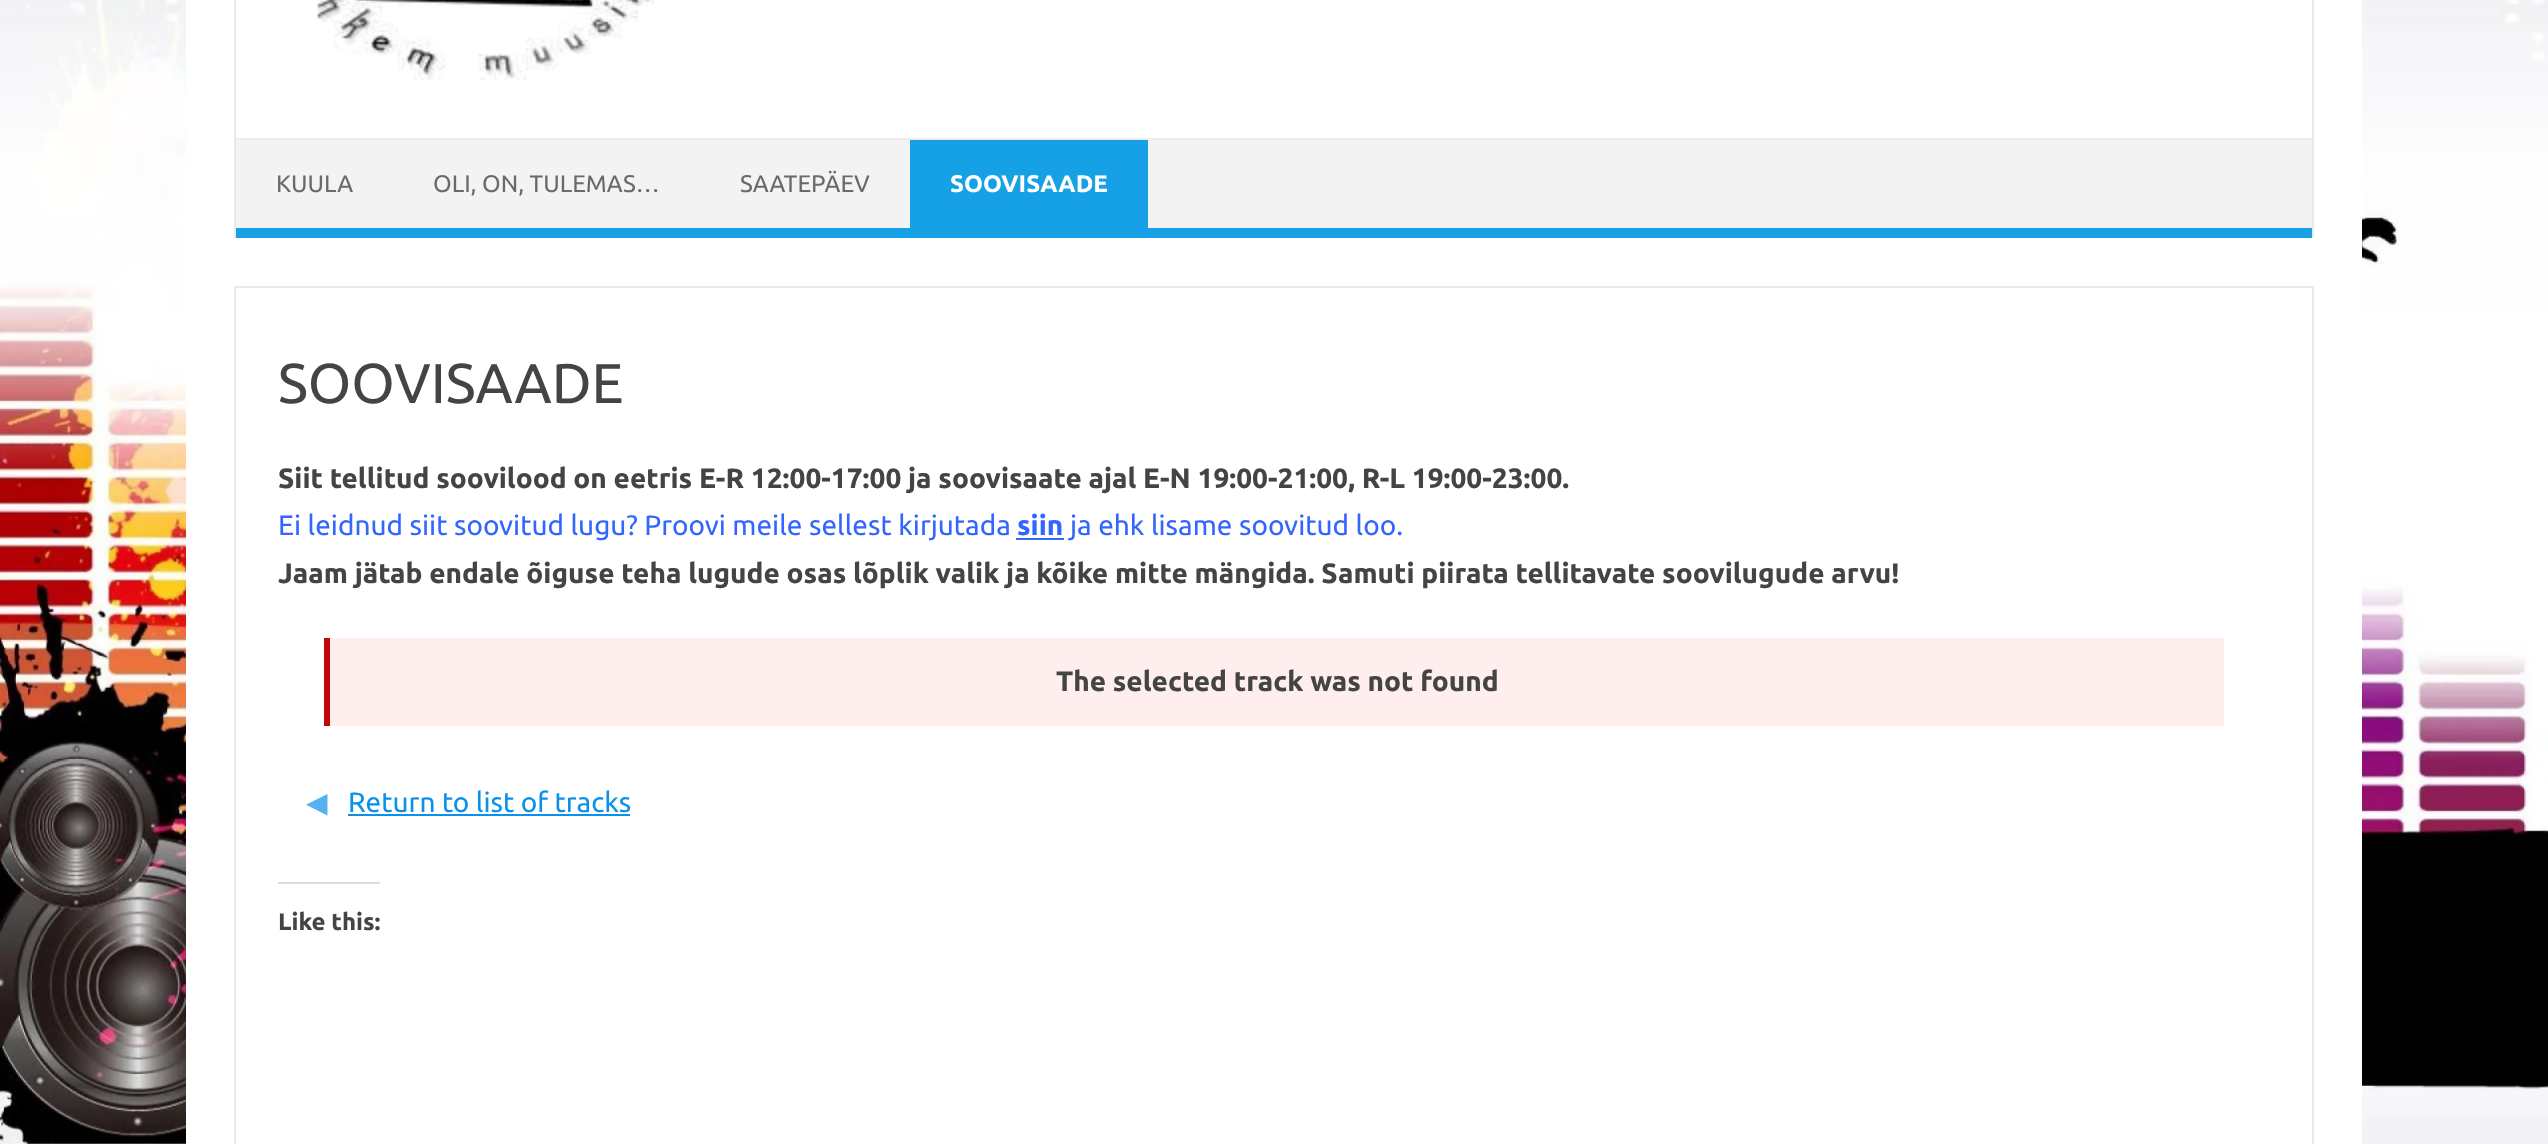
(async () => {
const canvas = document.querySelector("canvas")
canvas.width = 2548
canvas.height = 1144
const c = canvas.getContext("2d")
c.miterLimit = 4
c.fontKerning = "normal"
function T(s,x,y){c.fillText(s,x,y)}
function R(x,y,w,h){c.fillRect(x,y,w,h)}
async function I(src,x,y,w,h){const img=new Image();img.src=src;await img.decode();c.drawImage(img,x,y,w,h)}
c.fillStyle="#fff"
R(0,0,2548,1144)
await I("1.png",0,0,2548,1144)
R(186,0,2176,1144)
c.fillStyle="#e9e9e9"
R(2312,0,2,238)
R(234,0,2,238)
await I("2.png",317,0,337,80)
c.fillStyle="#f3f3f3"
R(236,140,2076,88)
c.fillStyle="#ededed"
R(236,138,2076,2)
c.fillStyle="#16a1e7"
R(236,228,2076,10)
c.font="24px Ubuntu"
c.fillStyle="#6a6a6a"
T("KUULA",276,192)
T("OLI, ON, TULEMAS…",433,192)
T("SAATEPÄEV",740,192)
c.fillStyle="#16a1e7"
R(910,140,238,88)
c.font="bold 24px Ubuntu"
c.fillStyle="#fff"
T("SOOVISAADE",950,192)
c.strokeStyle="#e9e9e9"
c.lineWidth=2
c.strokeRect(235,287,2078,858)
c.font="56px Ubuntu"
c.fillStyle="#444"
T("SOOVISAADE",278,403)
c.font="bold 28px Ubuntu"
T("Siit tellitud soovilood on eetris E-R 12:00-17:00 ja soovisaate ajal E-N 19:00-21:00, R-L 19:00-23:00.",278,488)
c.font="28px Ubuntu"
c.fillStyle="#36f"
T("Ei leidnud siit soovitud lugu? Proovi meile sellest kirjutada",278,535)
c.font="bold 28px Ubuntu"
T("siin",1017,535)
c.font="28px Ubuntu"
T("ja ehk lisame soovitud loo.",1070,535)
R(1016,538,48,2)
c.font="bold 28px Ubuntu"
c.fillStyle="#444"
T("Jaam jätab endale õiguse teha lugude osas lõplik valik ja kõike mitte mängida. Samuti piirata tellitavate soovilugude arvu!",278,583)
c.fillStyle="#fee"
R(330,638,1894,88)
c.fillStyle="#c10707"
R(324,638,6,88)
c.fillStyle="#444"
T("The selected track was not found",1056,691)
c.font="28px DejaVu Sans"
c.fillStyle="#54b2f0"
T("◀",306,812)
c.font="28px Ubuntu"
c.fillStyle="#0b91ea"
T("Return to list of tracks",348,812)
R(348,814,282,2)
c.fillStyle="#dcdcde"
R(278,882,102,2)
c.font="bold 24px Ubuntu"
c.fillStyle="#444"
T("Like this:",278,930)
})()
